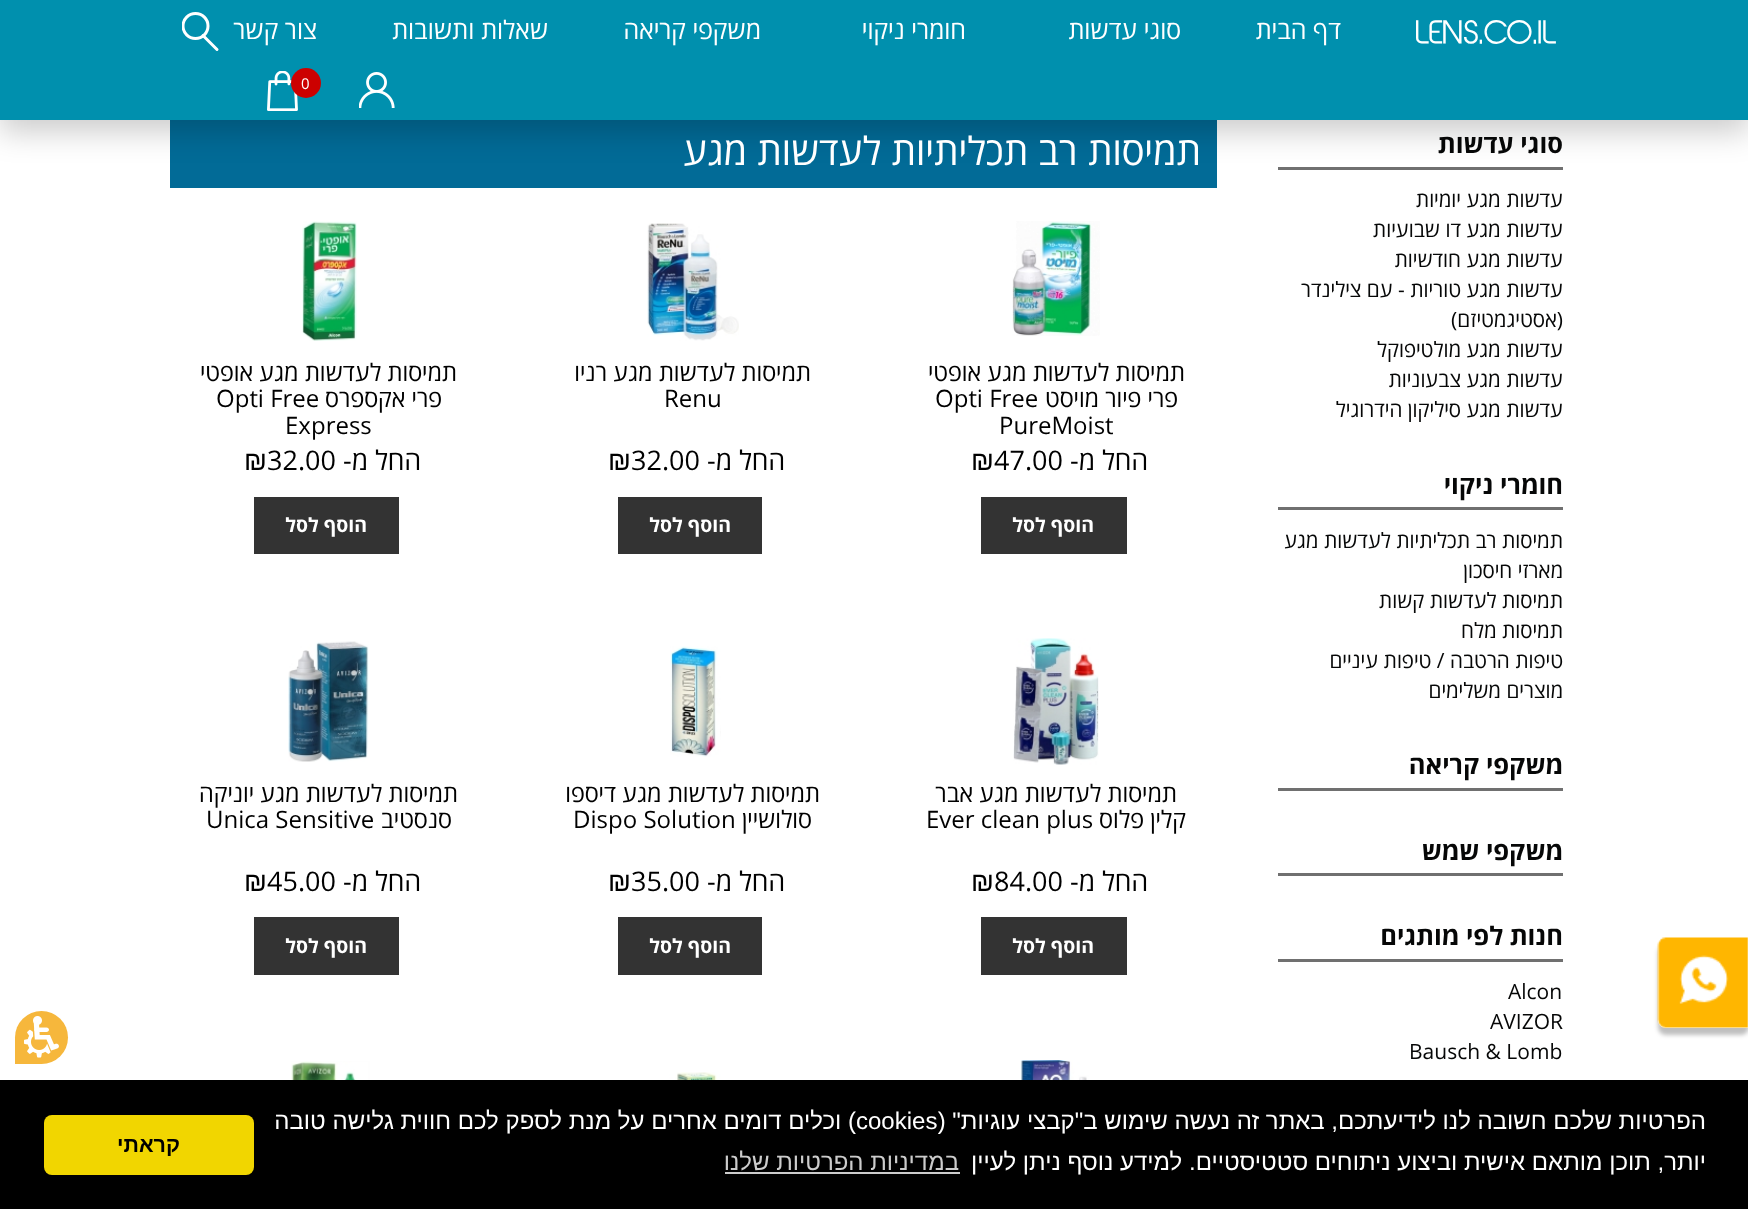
(async () => {
const canvas = document.querySelector("canvas")
canvas.width = 1748
canvas.height = 1209
const c = canvas.getContext("2d")
c.miterLimit = 4
c.fontKerning = "normal"
function T(s,x,y){c.fillText(s,x,y)}
function R(x,y,w,h){c.fillRect(x,y,w,h)}
function Q(x,y,w,h,r){c.beginPath();c.roundRect(x,y,w,h,r);c.fill()}
async function I(src,x,y,w,h){const img=new Image();img.src=src;await img.decode();c.drawImage(img,x,y,w,h)}
let path
c.fillStyle="#fff"
R(0,0,1748,1209)
c.fillStyle="#707070"
R(1278,167,285,3)
c.fillStyle="#026b97"
R(170,120,1047,68)
c.fillStyle="#00000033"
c.filter="blur(15px)"
c.beginPath()
c.rect(0,12,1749,120)
c.fill()
c.filter="none"
c.fillStyle="#0090ae"
R(0,0,1748,120)
c.font="30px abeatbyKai"
c.fillStyle="#fff"
T("LENS.CO.IL",1416,44)
c.direction="rtl"
c.font="25.5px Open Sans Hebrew"
T("דף הבית",1341,39)
T("סוגי עדשות",1181,39)
T("חומרי ניקוי",966,39)
T("משקפי קריאה",761,39)
T("שאלות ותשובות",548,39)
T("צור קשר",317,39)
await I("1.png",359,72,36,36)
await I("2.png",267,71,31,40)
c.fillStyle="#c00"
c.beginPath()
c.arc(306,83,15,0,7)
c.fill()
c.direction="ltr"
c.font="15px Open Sans Hebrew"
c.fillStyle="#fff"
T("0",301,89)
c.save()
c.beginPath()
c.rect(182,12,37,39)
c.clip()
c.beginPath()
c.arc(195.5,26,12.5,0,7)
c.strokeStyle="#fff"
c.lineWidth=3
c.stroke()
c.restore()
path = new Path2D("M203 35.5l14 14")
c.strokeStyle="#fff"
c.lineWidth=3
c.lineCap="round"
c.lineJoin="round"
c.stroke(path)
c.save()
path = new Path2D("M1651 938h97v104h-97zm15 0h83v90h-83c-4.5 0-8-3.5-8-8v-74c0-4.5 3.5-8 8-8z")
c.clip(path,"evenodd")
c.fillStyle="#00000040"
c.filter="blur(2px)"
c.beginPath()
c.roundRect(1658,945,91,90,8)
c.fill()
c.filter="none"
c.restore()
await I("3.png",1657,937,91,91)
c.direction="rtl"
c.font="bold 25.5px Open Sans Hebrew"
c.fillStyle="#060707"
T("סוגי עדשות",1563,153)
c.font="21px Open Sans Hebrew"
T("עדשות מגע יומיות",1563,207)
T("עדשות מגע דו שבועיות",1563,237)
T("עדשות מגע חודשיות",1563,267)
T("עדשות מגע טוריות - עם צילינדר",1563,297)
T("(אסטיגמטיזם)",1563,327)
T("עדשות מגע מולטיפוקל",1563,357)
T("עדשות מגע צבעוניות",1563,387)
T("עדשות מגע סיליקון הידרוגיל",1563,417)
c.fillStyle="#707070"
R(1278,507,285,3)
c.font="bold 25.5px Open Sans Hebrew"
c.fillStyle="#060707"
T("חומרי ניקוי",1563,494)
c.font="21px Open Sans Hebrew"
T("תמיסות רב תכליתיות לעדשות מגע",1563,548)
T("מארזי חיסכון",1563,578)
T("תמיסות לעדשות קשות",1563,608)
T("תמיסות מלח",1563,638)
T("טיפות הרטבה / טיפות עיניים",1563,668)
T("מוצרים משלימים",1563,698)
c.fillStyle="#707070"
R(1278,788,285,3)
c.font="bold 25.5px Open Sans Hebrew"
c.fillStyle="#060707"
T("משקפי קריאה",1563,774)
c.fillStyle="#707070"
R(1278,873,285,3)
c.fillStyle="#060707"
T("משקפי שמש",1563,860)
c.fillStyle="#707070"
R(1278,959,285,3)
c.fillStyle="#060707"
T("חנות לפי מותגים",1563,945)
c.direction="ltr"
c.font="21px Open Sans Hebrew"
T("Alcon",1508,999)
T("AVIZOR",1490,1029)
T("Bausch & Lomb",1409,1059)
c.direction="rtl"
c.font="39px Open Sans Hebrew"
c.fillStyle="#fff"
T("תמיסות רב תכליתיות לעדשות מגע",1201,165)
await I("4.png",1012,221,88,115)
c.font="24px Open Sans Hebrew"
c.fillStyle="#000"
T("תמיסות לעדשות מגע אופטי",1185,381)
T("פרי פיור מויסט",1178,407)
c.direction="ltr"
T("Opti Free",935,407)
T("PureMoist",999,434)
c.direction="rtl"
c.font="27px Open Sans Hebrew"
T("החל מ-",1148,470)
c.direction="ltr"
T("47.00",994,470)
c.font="27px Liberation Sans"
T("₪",971,470)
c.fillStyle="#333"
R(981,497,146,57)
c.direction="rtl"
c.font="bold 19.5px Open Sans Hebrew"
c.fillStyle="#fff"
T("הוסף לסל",1094,532)
await I("5.png",647,223,92,118)
c.font="24px Open Sans Hebrew"
c.fillStyle="#000"
T("תמיסות לעדשות מגע רניו",811,381)
c.direction="ltr"
T("Renu",664,407)
c.direction="rtl"
c.font="27px Open Sans Hebrew"
T("החל מ-",785,470)
c.direction="ltr"
T("32.00",631,470)
c.font="27px Liberation Sans"
T("₪",608,470)
c.fillStyle="#333"
R(618,497,144,57)
c.direction="rtl"
c.font="bold 19.5px Open Sans Hebrew"
c.fillStyle="#fff"
T("הוסף לסל",731,532)
await I("6.png",302,221,55,120)
c.font="24px Open Sans Hebrew"
c.fillStyle="#000"
T("תמיסות לעדשות מגע אופטי",457,381)
T("פרי אקספרס",442,407)
c.direction="ltr"
T("Opti Free",216,407)
T("Express",285,434)
c.direction="rtl"
c.font="27px Open Sans Hebrew"
T("החל מ-",421,470)
c.direction="ltr"
T("32.00",267,470)
c.font="27px Liberation Sans"
T("₪",244,470)
c.fillStyle="#333"
R(254,497,145,57)
c.direction="rtl"
c.font="bold 19.5px Open Sans Hebrew"
c.fillStyle="#fff"
T("הוסף לסל",367,532)
await I("7.png",1013,638,86,127)
c.font="24px Open Sans Hebrew"
c.fillStyle="#000"
T("תמיסות לעדשות מגע אבר",1177,802)
T("קלין פלוס",1186,828)
c.direction="ltr"
T("Ever clean plus",926,828)
c.direction="rtl"
c.font="27px Open Sans Hebrew"
T("החל מ-",1148,891)
c.direction="ltr"
T("84.00",994,891)
c.font="27px Liberation Sans"
T("₪",971,891)
c.fillStyle="#333"
R(981,917,146,58)
c.direction="rtl"
c.font="bold 19.5px Open Sans Hebrew"
c.fillStyle="#fff"
T("הוסף לסל",1094,953)
await I("8.png",670,646,51,111)
c.font="24px Open Sans Hebrew"
c.fillStyle="#000"
T("תמיסות לעדשות מגע דיספו",820,802)
T("סולושיין",812,828)
c.direction="ltr"
T("Dispo Solution",573,828)
c.direction="rtl"
c.font="27px Open Sans Hebrew"
T("החל מ-",785,891)
c.direction="ltr"
T("35.00",631,891)
c.font="27px Liberation Sans"
T("₪",608,891)
c.fillStyle="#333"
R(618,917,144,58)
c.direction="rtl"
c.font="bold 19.5px Open Sans Hebrew"
c.fillStyle="#fff"
T("הוסף לסל",731,953)
await I("9.png",288,641,81,121)
c.font="24px Open Sans Hebrew"
c.fillStyle="#000"
T("תמיסות לעדשות מגע יוניקה",458,802)
T("סנסטיב",452,828)
c.direction="ltr"
T("Unica Sensitive",206,828)
c.direction="rtl"
c.font="27px Open Sans Hebrew"
T("החל מ-",421,891)
c.direction="ltr"
T("45.00",267,891)
c.font="27px Liberation Sans"
T("₪",244,891)
c.fillStyle="#333"
R(254,917,145,58)
c.direction="rtl"
c.font="bold 19.5px Open Sans Hebrew"
c.fillStyle="#fff"
T("הוסף לסל",367,953)
await I("10.png",1020,1060,82,20)
await I("11.png",645,1072,82,8)
await I("12.png",291,1061,79,19)
c.fillStyle="#f6b73c"
c.beginPath()
c.roundRect(15,1011,53,53,[26.5,26.5,26.5,0])
c.fill()
await I("13.png",24,1016,35,42)
c.fillStyle="#000"
R(0,1080,1748,129)
c.font="24px Liberation Sans"
c.fillStyle="#fff"
T("הפרטיות שלכם חשובה לנו לידיעתכם, באתר זה נעשה שימוש ב\"קבצי עוגיות\" (",1706,1129)
c.direction="ltr"
T("cookies",856,1129)
c.direction="rtl"
T(") וכלים דומים אחרים על מנת לספק לכם חווית גלישה טובה",856,1129)
T("יותר, תוכן מותאם אישית וביצוע ניתוחים סטטיסטיים. למידע נוסף ניתן לעיין",1706,1170)
c.fillStyle="#ccc"
T("במדיניות הפרטיות שלנו",959,1170)
R(725,1172,235,2)
c.fillStyle="#f1d600"
Q(44,1115,210,60,8)
c.font="bold 21.5px Liberation Sans"
c.fillStyle="#000"
T("קראתי",180,1152)
})()
